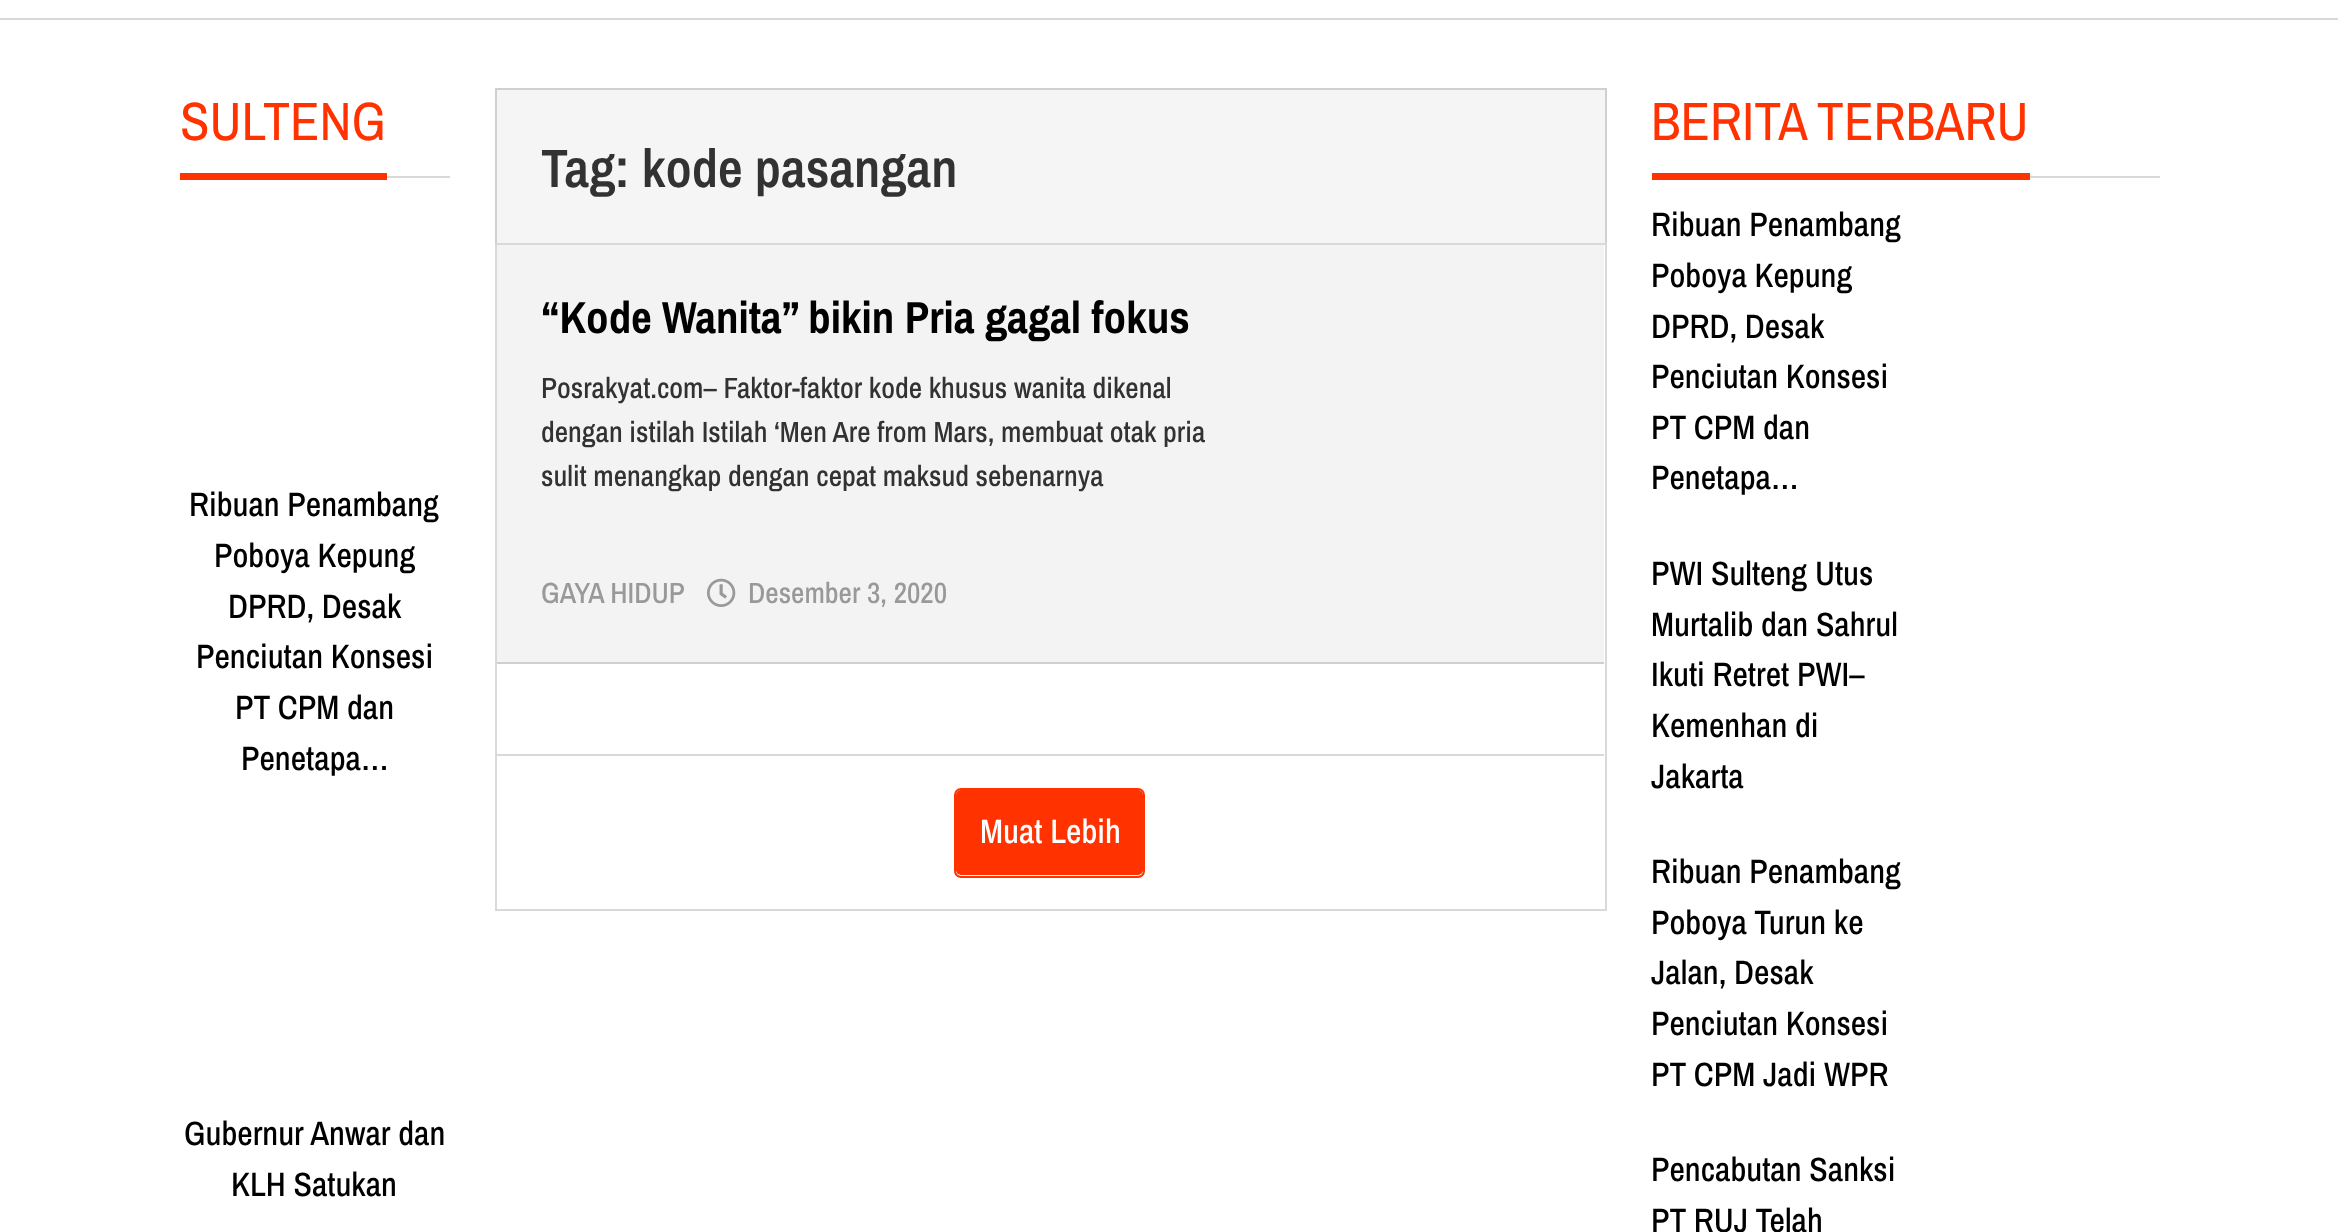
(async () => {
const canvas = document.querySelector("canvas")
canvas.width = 2338
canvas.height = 1232
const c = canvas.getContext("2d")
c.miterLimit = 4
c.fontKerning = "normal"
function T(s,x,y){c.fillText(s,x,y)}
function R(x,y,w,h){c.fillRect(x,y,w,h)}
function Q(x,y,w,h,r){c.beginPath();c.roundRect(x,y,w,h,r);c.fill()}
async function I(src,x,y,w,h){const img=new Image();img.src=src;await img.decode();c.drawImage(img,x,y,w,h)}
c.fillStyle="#fff"
R(0,0,2338,1232)
c.fillStyle="#d9d9d9"
R(0,18,2338,2)
R(387,176,63,2)
c.fillStyle="#ff3200"
R(180,173,207,7)
c.font="54px Archivo Narrow"
T("SULTENG",180,140)
c.font="500 33.75px Archivo Narrow"
c.fillStyle="#000"
T("Ribuan Penambang",189,516)
T("Poboya Kepung",214,567)
T("DPRD, Desak",228,618)
T("Penciutan Konsesi",196,668)
T("PT CPM dan",235,719)
T("Penetapa…",241,770)
T("Gubernur Anwar dan",184,1145)
T("KLH Satukan",231,1196)
c.fillStyle="#f5f5f5"
c.beginPath()
c.rect(496,89,1110,155)
c.fill()
c.strokeStyle="#d0d0d0"
c.lineWidth=2
c.stroke()
c.font="600 54px Archivo Narrow"
c.fillStyle="#323233"
T("Tag: kode pasangan",541,187)
c.strokeStyle="#d9d9d9"
c.strokeRect(496,244,1110,666)
c.fillStyle="#f3f3f3"
R(497,245,1107,417)
c.fillStyle="#cfcfcf"
R(497,662,1107,2)
c.font="bold 45px Archivo Narrow"
c.fillStyle="#000"
T("“Kode Wanita” bikin Pria gagal fokus",541,333)
c.font="500 29.25px Archivo Narrow"
c.fillStyle="#323233"
T("Posrakyat.com– Faktor-faktor kode khusus wanita dikenal",541,398)
T("dengan istilah Istilah ‘Men Are from Mars, membuat otak pria",541,442)
T("sulit menangkap dengan cepat maksud sebenarnya",541,486)
c.fillStyle="#999"
T("GAYA HIDUP",541,603)
await I("1.png",707,578,29,29)
T("Desember 3, 2020",748,603)
c.fillStyle="#d9d9d9"
R(497,754,1107,2)
c.fillStyle="#ff3200"
Q(956,790,187,85,5)
c.beginPath()
c.roundRect(955,789,189,88,6)
c.strokeStyle="#ff3200"
c.stroke()
c.font="500 33.75px Archivo Narrow"
c.fillStyle="#fff"
T("Muat Lebih",980,843)
c.fillStyle="#d9d9d9"
R(2030,176,130,2)
c.fillStyle="#ff3200"
R(1652,173,378,7)
c.font="54px Archivo Narrow"
T("BERITA TERBARU",1651,140)
c.font="500 33.75px Archivo Narrow"
c.fillStyle="#000"
T("Ribuan Penambang",1651,236)
T("Poboya Kepung",1651,287)
T("DPRD, Desak",1651,338)
T("Penciutan Konsesi",1651,388)
T("PT CPM dan",1651,439)
T("Penetapa…",1651,489)
T("PWI Sulteng Utus",1651,585)
T("Murtalib dan Sahrul",1651,636)
T("Ikuti Retret PWI–",1651,686)
T("Kemenhan di",1651,737)
T("Jakarta",1651,788)
T("Ribuan Penambang",1651,883)
T("Poboya Turun ke",1651,934)
T("Jalan, Desak",1651,984)
T("Penciutan Konsesi",1651,1035)
T("PT CPM Jadi WPR",1651,1086)
T("Pencabutan Sanksi",1651,1181)
T("PT RUJ Telah",1651,1232)
})()
